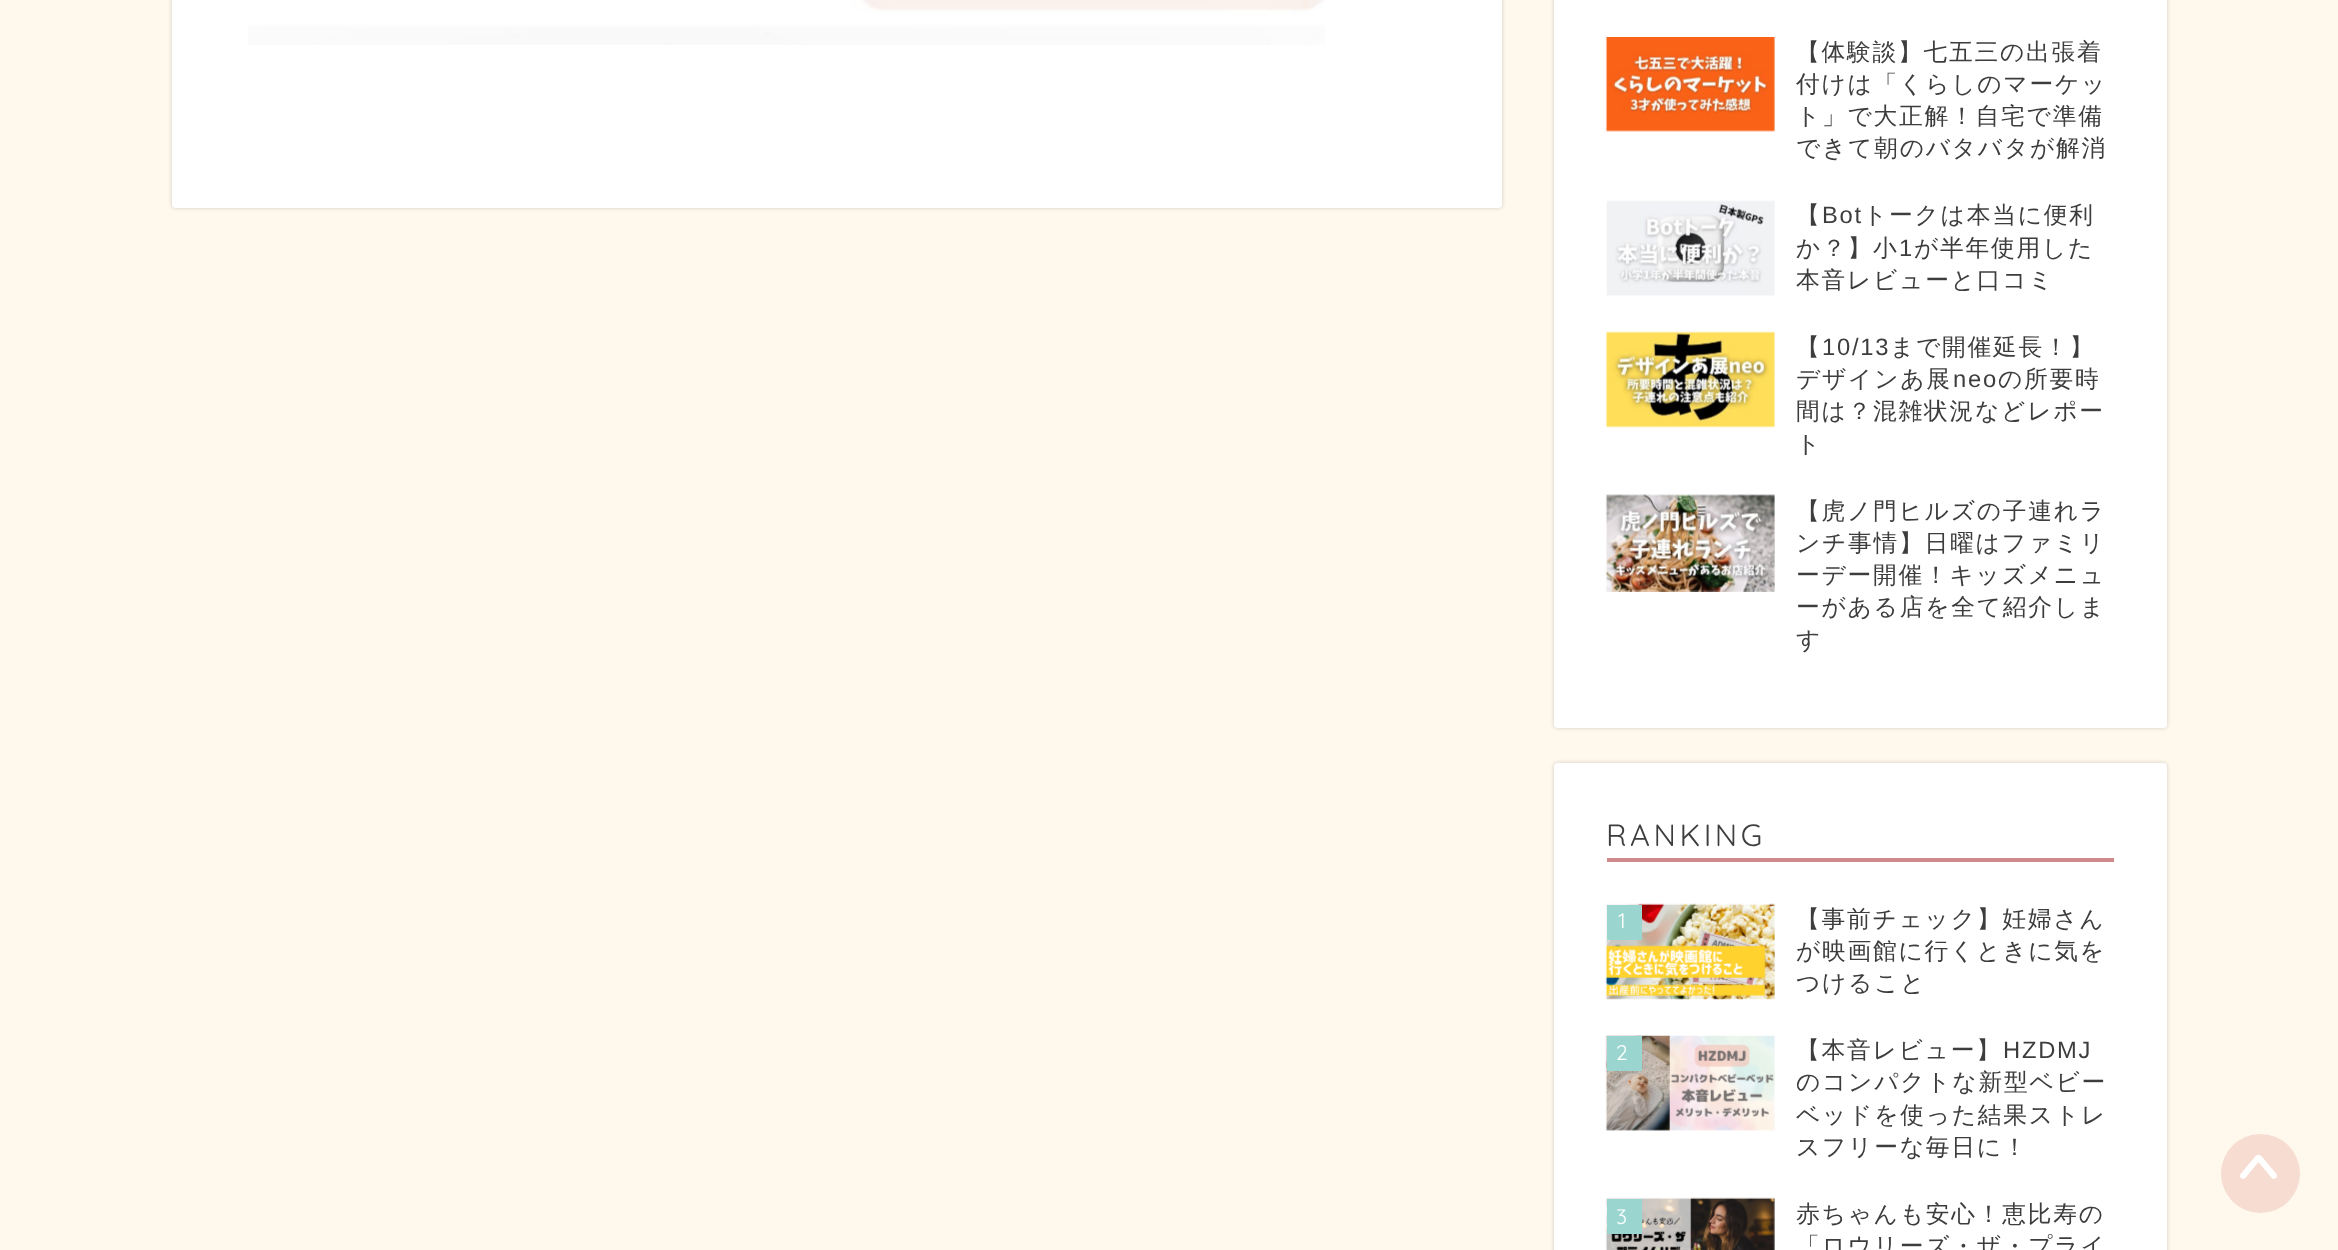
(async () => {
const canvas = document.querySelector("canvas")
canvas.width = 2338
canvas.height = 1250
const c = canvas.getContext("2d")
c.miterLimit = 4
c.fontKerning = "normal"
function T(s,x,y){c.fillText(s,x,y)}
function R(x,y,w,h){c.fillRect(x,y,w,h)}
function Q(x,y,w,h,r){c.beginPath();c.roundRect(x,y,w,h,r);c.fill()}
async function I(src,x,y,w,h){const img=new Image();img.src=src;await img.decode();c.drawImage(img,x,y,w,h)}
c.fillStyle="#fff8ed"
R(0,0,2338,1250)
c.fillStyle="#0000002e"
c.filter="blur(2px)"
c.beginPath()
c.roundRect(172,-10,1330,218,4)
c.fill()
c.filter="none"
c.fillStyle="#fff"
Q(172,-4,1330,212,4)
await I("1.png",248,0,1077,45)
c.fillStyle="#0000002e"
c.filter="blur(2px)"
c.beginPath()
c.roundRect(1554,-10,613,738,4)
c.fill()
c.filter="none"
c.fillStyle="#fff"
Q(1554,-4,613,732,4)
await I("2.png",1605,37,170,95)
c.letterSpacing="1.75px"
c.font="500 23.75px WenQuanYi Zen Hei"
c.fillStyle="#3d3d3d"
T("【体験談】七五三の出張着",1796,60)
T("付けは「くらしのマーケッ",1796,92)
T("ト」で大正解！自宅で準備",1796,124)
T("できて朝のバタバタが解消",1796,156)
await I("3.png",1606,200,169,96)
T("【",1796,223)
c.font="23.75px Liberation Sans"
T("Bot",1822,223)
c.font="500 23.75px WenQuanYi Zen Hei"
T("トークは本当に便利",1863,223)
T("か？】小",1796,256)
c.font="23.75px Liberation Sans"
T("1",1899,256)
c.font="500 23.75px WenQuanYi Zen Hei"
T("が半年使用した",1914,256)
T("本音レビューと口コミ",1796,288)
await I("4.png",1605,331,170,97)
T("【",1796,355)
c.font="23.75px Liberation Sans"
T("10/13",1822,355)
c.font="500 23.75px WenQuanYi Zen Hei"
T("まで開催延長！】",1890,355)
T("デザインあ展",1796,387)
c.font="23.75px Liberation Sans"
T("neo",1953,387)
c.font="500 23.75px WenQuanYi Zen Hei"
T("の所要時",1998,387)
T("間は？混雑状況などレポー",1796,419)
T("ト",1796,452)
await I("5.png",1605,494,170,98)
T("【虎ノ門ヒルズの子連れラ",1796,519)
T("ンチ事情】日曜はファミリ",1796,551)
T("ーデー開催！キッズメニュ",1796,583)
T("ーがある店を全て紹介しま",1796,615)
T("す",1796,648)
c.fillStyle="#0000002e"
c.filter="blur(2px)"
c.beginPath()
c.roundRect(1554,763,613,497,4)
c.fill()
c.filter="none"
c.fillStyle="#fff"
Q(1554,763,613,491,4)
c.fillStyle="#d18a8b"
R(1607,858,507,4)
c.letterSpacing="3.5px"
c.font="300 30.75px Quicksand"
c.fillStyle="#3d3d3d"
T("RANKING",1606,846)
await I("6.png",1605,903,170,97)
c.fillStyle="#9ad6cf"
R(1607,905,35,35)
c.font="300 21px Quicksand"
c.fillStyle="#fff"
T("1",1618,928)
c.letterSpacing="1.75px"
c.font="500 23.75px WenQuanYi Zen Hei"
c.fillStyle="#3d3d3d"
T("【事前チェック】妊婦さん",1796,927)
T("が映画館に行くときに気を",1796,959)
T("つけること",1796,991)
await I("7.png",1605,1035,170,96)
c.fillStyle="#9ad6cf"
R(1607,1036,35,35)
c.letterSpacing="3.5px"
c.font="300 21px Quicksand"
c.fillStyle="#fff"
T("2",1616,1060)
c.letterSpacing="1.75px"
c.font="500 23.75px WenQuanYi Zen Hei"
c.fillStyle="#3d3d3d"
T("【本音レビュー】",1796,1058)
c.font="23.75px Liberation Sans"
T("HZDMJ",2003,1058)
c.font="500 23.75px WenQuanYi Zen Hei"
T("のコンパクトな新型ベビー",1796,1090)
T("ベッドを使った結果ストレ",1796,1123)
T("スフリーな毎日に！",1796,1155)
await I("8.png",1605,1197,170,53)
c.fillStyle="#9ad6cf"
R(1607,1199,35,35)
c.letterSpacing="3.5px"
c.font="300 21px Quicksand"
c.fillStyle="#fff"
T("3",1616,1224)
c.letterSpacing="1.75px"
c.font="500 23.75px WenQuanYi Zen Hei"
c.fillStyle="#3d3d3d"
T("赤ちゃんも安心！恵比寿の",1796,1222)
T("「ロウリーズ・ザ・プライ",1796,1254)
c.fillStyle="#f7dcd2"
c.beginPath()
c.arc(2260.5,1173.5,39.5,0,7)
c.fill()
await I("9.png",2240,1154,37,25)
})()
